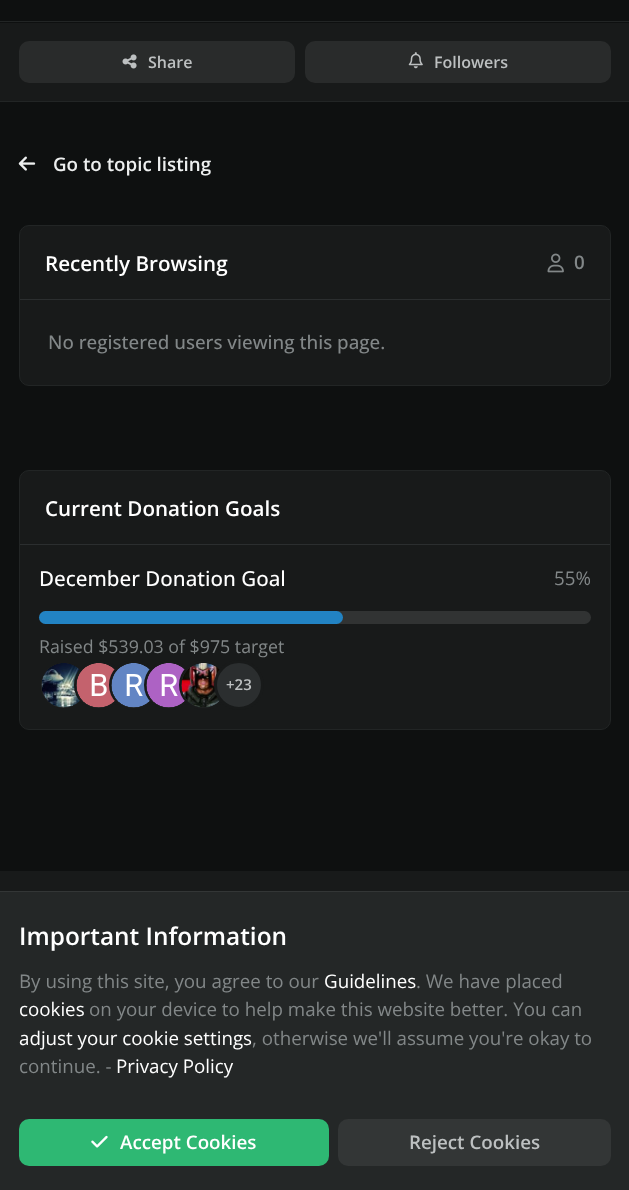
(async () => {
const canvas = document.querySelector("canvas")
canvas.width = 629
canvas.height = 1190
const c = canvas.getContext("2d")
c.miterLimit = 4
c.fontKerning = "normal"
function T(s,x,y){c.fillText(s,x,y)}
function R(x,y,w,h){c.fillRect(x,y,w,h)}
function Q(x,y,w,h,r){c.beginPath();c.roundRect(x,y,w,h,r);c.fill()}
async function I(src,x,y,w,h){const img=new Image();img.src=src;await img.decode();c.drawImage(img,x,y,w,h)}
c.fillStyle="#0e1010"
R(0,0,629,1190)
c.fillStyle="#181a1a"
R(0,23,629,78)
c.fillStyle="#222525"
R(0,21,629,1)
R(0,101,629,1)
c.fillStyle="#292b2b"
Q(19,41,276,42,10)
await I("1.png",122,54,15,15)
c.font="600 16px Open Sans"
c.fillStyle="#bdc0c1"
T("Share",148,68)
c.fillStyle="#292b2b"
Q(305,41,306,42,10)
await I("2.png",408,52,15,17)
c.fillStyle="#bdc0c1"
T("Followers",434,68)
await I("3.png",18,156,18,15)
c.font="600 18.75px Open Sans"
c.fillStyle="#edefef"
T("Go to topic listing",53,171)
c.fillStyle="#181a1a"
c.beginPath()
c.roundRect(19.5,225.5,591,160,9.5)
c.fill()
c.strokeStyle="#222525"
c.stroke()
c.fillStyle="#2b2e2f"
R(20,299,590,1)
c.font="600 20.6px Open Sans"
c.fillStyle="#fff"
T("Recently Browsing",45,271)
await I("4.png",547,253,17,20)
c.font="600 18.75px Open Sans"
c.fillStyle="#828788"
T("0",574,269)
c.font="500 18.75px Open Sans"
T("No registered users viewing this page.",48,349)
c.fillStyle="#181a1a"
c.beginPath()
c.roundRect(19.5,470.5,591,259,9.5)
c.fill()
c.stroke()
c.fillStyle="#2b2e2f"
R(20,544,590,1)
c.font="600 20.6px Open Sans"
c.fillStyle="#fff"
T("Current Donation Goals",45,516)
c.font="500 20.6px Open Sans"
T("December Donation Goal",39,586)
c.font="18.75px Open Sans"
c.fillStyle="#828788"
T("55%",554,585)
c.fillStyle="#313333"
Q(39,611,552,13,6.5)
c.fillStyle="#2283c3"
Q(39,611,304,13,6.5)
c.font="17.75px Open Sans"
c.fillStyle="#828788"
T("Raised $539.03 of $975 target",39,653)
c.fillStyle="#242727"
c.beginPath()
c.arc(63.5,685.5,22.5,0,7)
c.fill()
await I("5.png",41,663,41,45)
c.beginPath()
c.arc(99,685,23.5,0,7)
c.strokeStyle="#181a1a"
c.lineWidth=3
c.stroke()
c.beginPath()
c.arc(98.5,685.5,22.5,0,7)
c.fill()
await I("6.png",76,663,41,45)
c.beginPath()
c.arc(134,685,23.5,0,7)
c.stroke()
c.beginPath()
c.arc(133.5,685.5,22.5,0,7)
c.fill()
await I("7.png",111,663,41,45)
c.beginPath()
c.arc(169,685,23.5,0,7)
c.stroke()
c.beginPath()
c.arc(168.5,685.5,22.5,0,7)
c.fill()
await I("8.png",146,663,41,45)
c.beginPath()
c.arc(204,685,23.5,0,7)
c.stroke()
c.beginPath()
c.arc(203.5,685.5,22.5,0,7)
c.fill()
await I("9.png",181,663,39,45)
c.fillStyle="#2b2e2f"
c.beginPath()
c.arc(239,685,23.5,0,7)
c.fill()
c.stroke()
c.font="600 15px Open Sans"
c.fillStyle="#bdc0c1"
T("+23",226,690)
c.fillStyle="#181a1a"
R(0,871,629,20)
c.fillStyle="#242727"
R(0,892,629,298)
c.fillStyle="#333636"
R(0,891,629,1)
c.font="600 24.4px Open Sans"
c.fillStyle="#fff"
T("Important Information",19,945)
c.font="18.75px Open Sans"
c.fillStyle="#828788"
T("By using this site, you agree to our",19,988)
c.fillStyle="#fff"
T("Guidelines",324,988)
c.fillStyle="#828788"
T(". We have placed",416,988)
c.fillStyle="#fff"
T("cookies",19,1016)
c.fillStyle="#828788"
T("on your device to help make this website better. You can",89,1016)
c.fillStyle="#fff"
T("adjust your cookie settings",19,1045)
c.fillStyle="#828788"
T(", otherwise we'll assume you're okay to",252,1045)
T("continue. -",19,1073)
c.fillStyle="#fff"
T("Privacy Policy",116,1073)
c.fillStyle="#2eb873"
Q(19,1119,310,47,10)
await I("10.png",91,1135,17,13)
c.font="600 18.75px Open Sans"
c.fillStyle="#fff"
T("Accept Cookies",120,1149)
c.fillStyle="#333636"
Q(338,1119,273,47,10)
c.fillStyle="#bdc0c1"
T("Reject Cookies",409,1149)
})()
